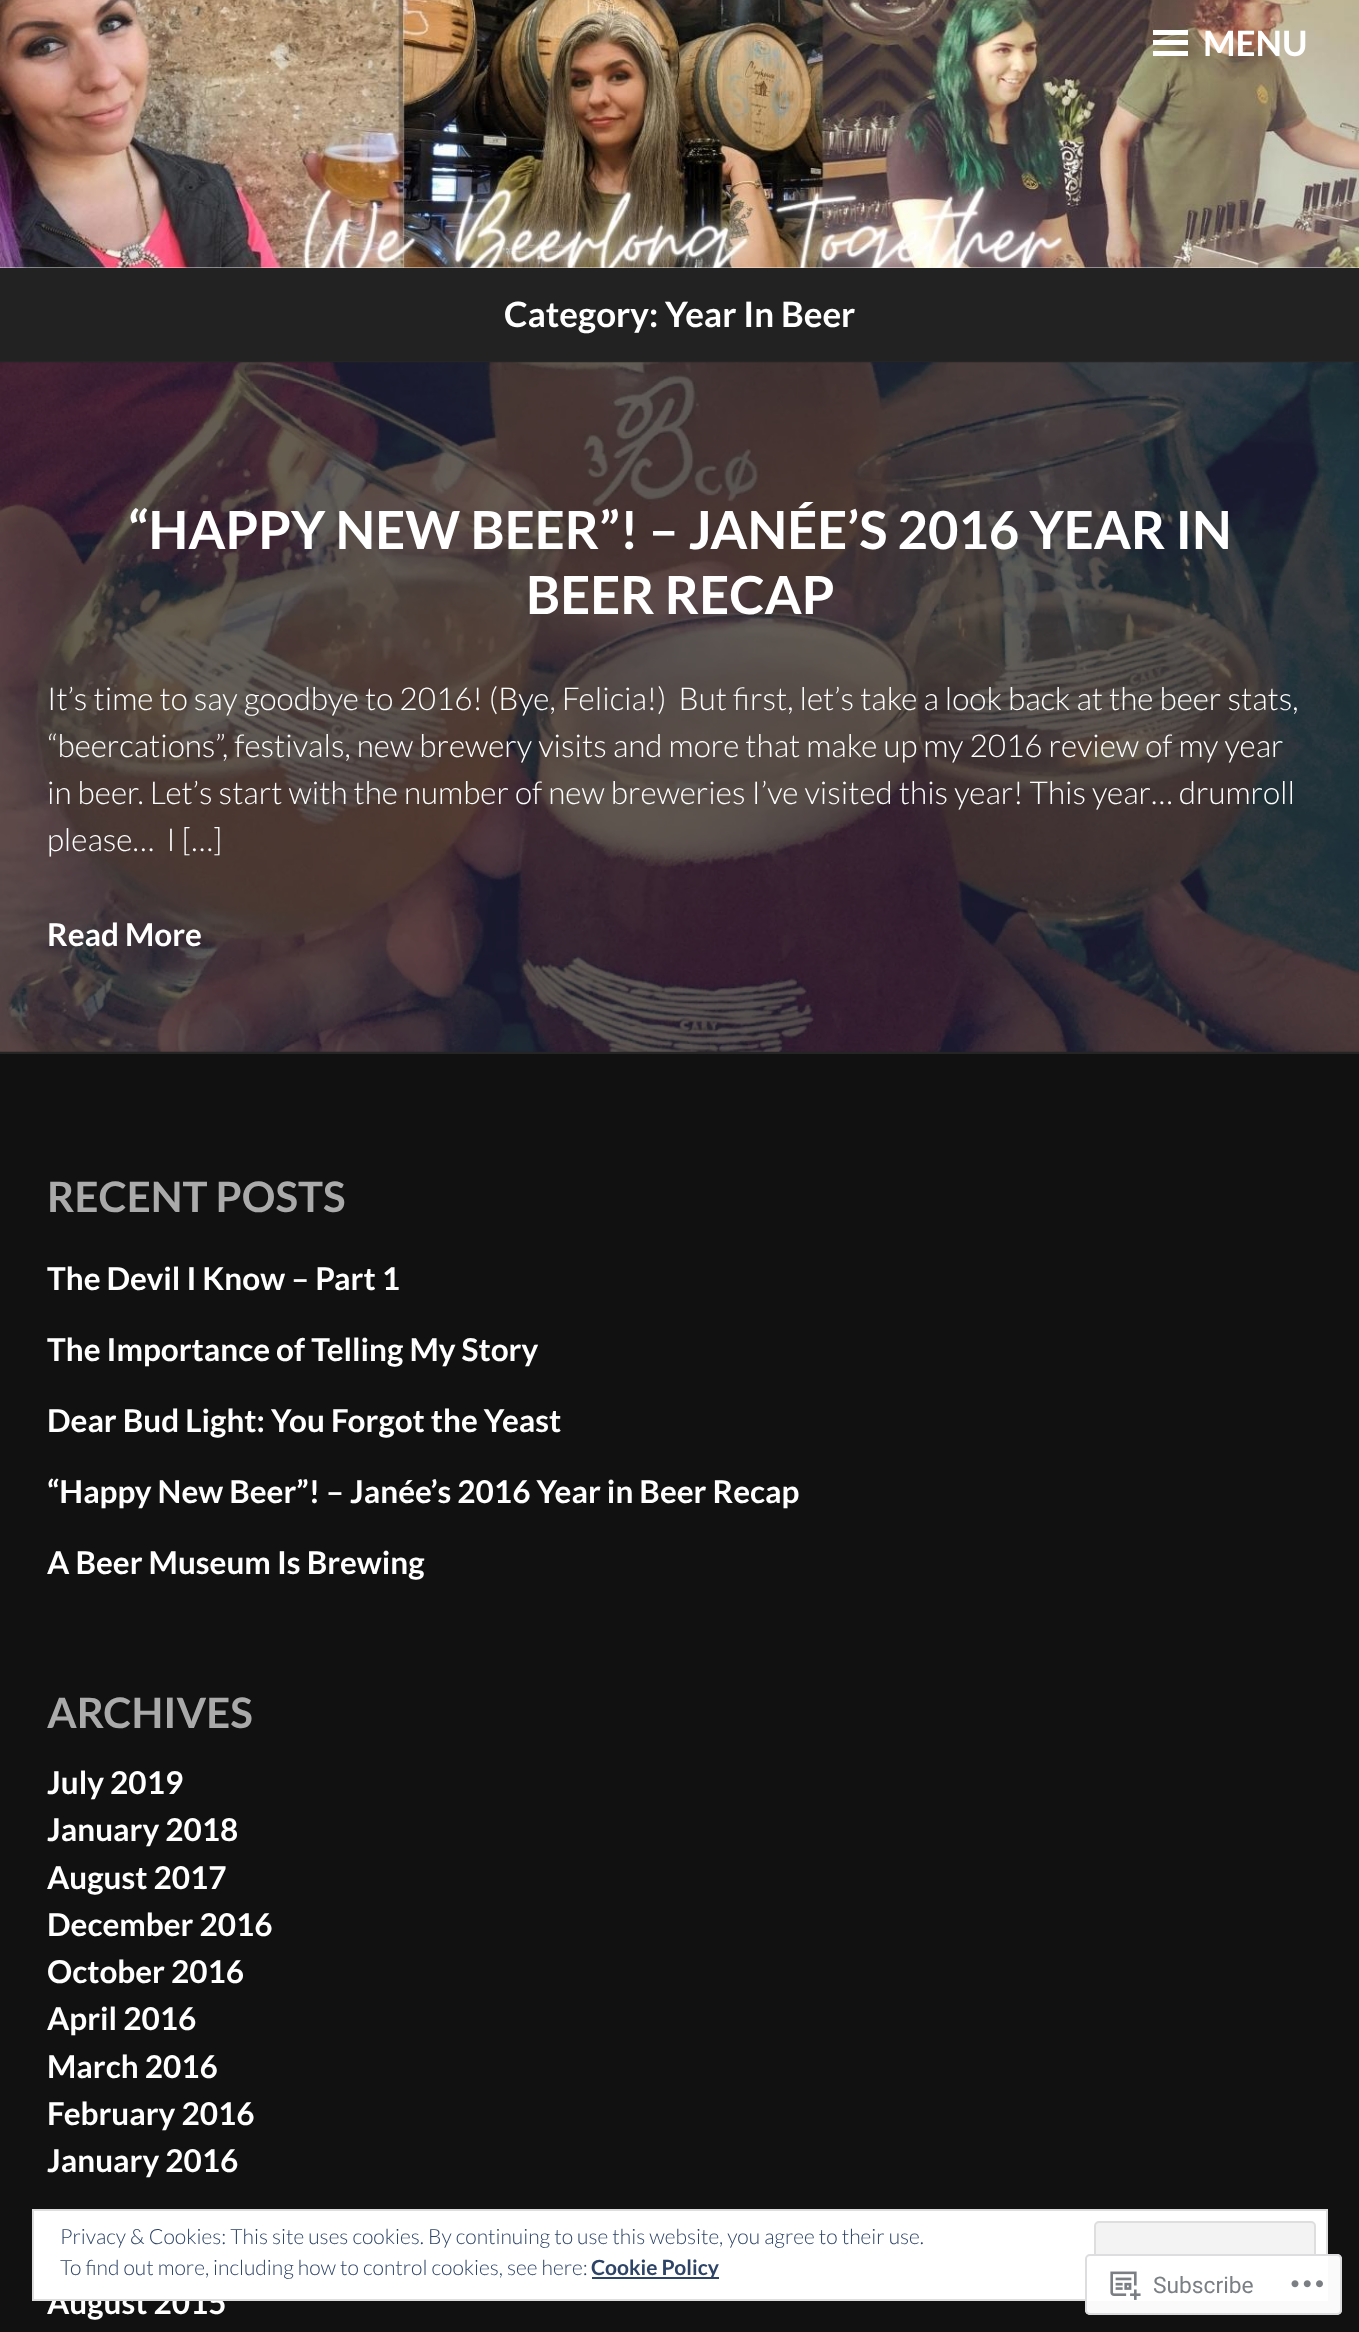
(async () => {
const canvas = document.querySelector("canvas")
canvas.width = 1359
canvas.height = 2332
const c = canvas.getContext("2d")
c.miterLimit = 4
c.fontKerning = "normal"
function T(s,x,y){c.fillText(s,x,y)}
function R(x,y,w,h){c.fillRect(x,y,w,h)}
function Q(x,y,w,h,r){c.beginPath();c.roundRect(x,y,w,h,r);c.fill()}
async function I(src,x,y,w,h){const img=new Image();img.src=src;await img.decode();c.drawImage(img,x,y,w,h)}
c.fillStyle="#fff"
R(0,0,1359,2332)
await I("1.png",0,0,1359,268)
R(1153,40,35,5)
R(1153,30,35,5)
R(1153,51,35,5)
c.font="bold 35px Lato"
T("MENU",1203,56)
c.fillStyle="#222"
R(0,268,1359,93)
c.fillStyle="#252525"
R(0,361,1359,1)
c.fillStyle="#fff"
T("Category: Year In Beer",504,327)
c.fillStyle="#222"
R(0,362,1359,690)
c.fillStyle="#252525"
R(0,1052,1359,2)
await I("2.png",0,362,1359,690)
c.font="bold 52.5px Lato"
c.fillStyle="#fff"
T("“HAPPY NEW BEER”! – JANÉE’S 2016 YEAR IN",128,549)
T("BEER RECAP",526,614)
c.font="300 31.5px Lato"
T("It’s time to say goodbye to 2016! (Bye, Felicia!)  But first, let’s take a look back at the beer stats,",47,710)
T("“beercations”, festivals, new brewery visits and more that make up my 2016 review of my year",47,757)
T("in beer. Let’s start with the number of new breweries I’ve visited this year! This year… drumroll",47,804)
T("please…  I […]",47,851)
c.font="bold 31.5px Lato"
T("Read More",47,946)
c.fillStyle="#111"
R(0,1054,1359,1278)
c.font="bold 42px Lato"
c.fillStyle="#aaa"
T("RECENT POSTS",47,1212)
c.font="bold 31.5px Lato"
c.fillStyle="#fff"
T("The Devil I Know – Part 1",47,1290)
T("The Importance of Telling My Story",47,1361)
T("Dear Bud Light: You Forgot the Yeast",47,1432)
T("“Happy New Beer”! – Janée’s 2016 Year in Beer Recap",47,1503)
T("A Beer Museum Is Brewing",47,1574)
c.font="bold 42px Lato"
c.fillStyle="#aaa"
T("ARCHIVES",47,1728)
c.font="bold 31.5px Lato"
c.fillStyle="#fff"
T("July 2019",47,1794)
T("January 2018",47,1841)
T("August 2017",47,1889)
T("December 2016",47,1936)
T("October 2016",47,1983)
T("April 2016",47,2030)
T("March 2016",47,2078)
T("February 2016",47,2125)
T("January 2016",47,2172)
T("August 2015",47,2314)
c.beginPath()
c.rect(33,2210,1294,90)
c.fill()
c.strokeStyle="#dedede"
c.lineWidth=2
c.stroke()
c.font="300 21px Lato"
c.fillStyle="#2e4467"
T("Privacy & Cookies: This site uses cookies. By continuing to use this website, you agree to their use.",60,2244)
c.fillStyle="#f3f3f3"
c.beginPath()
c.roundRect(1095,2222,220,66,4)
c.fill()
c.stroke()
c.fillStyle="#2e4467"
T("To find out more, including how to control cookies, see here:",60,2275)
R(592,2277,127,2)
c.font="bold 21px Lato"
T("Cookie Policy",591,2275)
c.fillStyle="#fffffffa"
Q(1085,2254,257,61,5)
c.beginPath()
c.roundRect(1086,2255,255,59,4)
c.strokeStyle="#dcdcdefa"
c.stroke()
await I("3.png",1110,2271,31,29)
c.font="22.75px Roboto"
c.fillStyle="#7b7f84"
T("Subscribe",1153,2293)
await I("4.png",1291,2280,32,8)
})()
